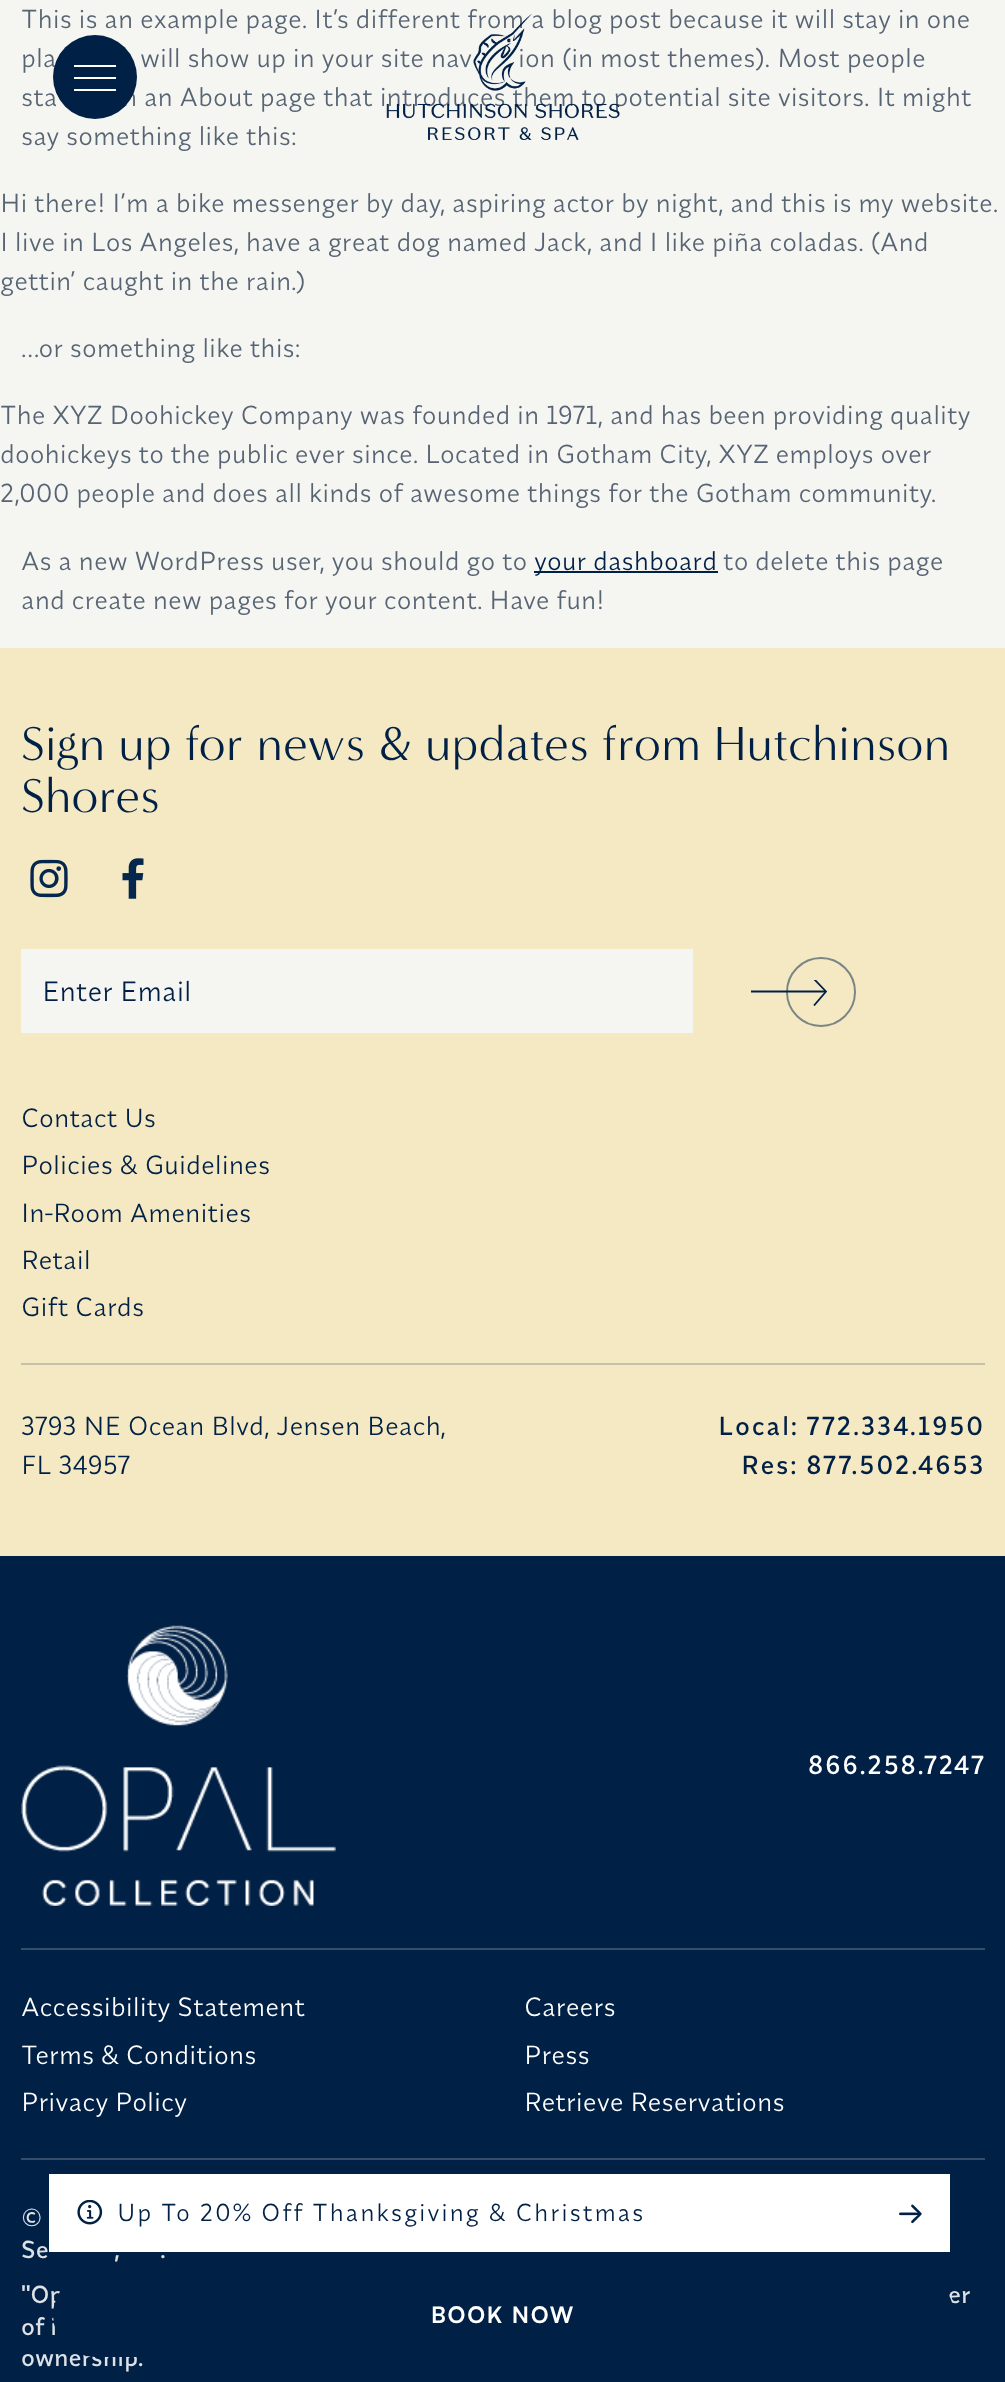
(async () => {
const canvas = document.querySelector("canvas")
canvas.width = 1005
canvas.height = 2382
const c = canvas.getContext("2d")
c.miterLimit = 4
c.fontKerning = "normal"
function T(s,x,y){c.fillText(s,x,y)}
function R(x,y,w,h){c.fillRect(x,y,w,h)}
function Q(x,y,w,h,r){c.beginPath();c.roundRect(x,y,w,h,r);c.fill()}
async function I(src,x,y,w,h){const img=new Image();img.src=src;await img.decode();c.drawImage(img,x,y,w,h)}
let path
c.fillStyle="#f5f5f2"
R(0,0,1005,2382)
c.font="26.05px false"
c.fillStyle="#576473"
T("This is an example page. It’s different from a blog post because it will stay in one",21,28)
T("pla",21,67)
T("will show up in your site nav",140,67)
T("ion (in most themes). Most people",518,67)
T("sta",21,106)
T("h an About page that introduces them to potential site visitors. It might",122,106)
T("say something like this:",21,145)
T("Hi there! I’m a bike messenger by day, aspiring actor by night, and this is my website.",0,212)
T("I live in Los Angeles, have a great dog named Jack, and I like piña coladas. (And",0,251)
T("gettin’ caught in the rain.)",0,290)
T("…or something like this:",21,357)
T("The XYZ Doohickey Company was founded in 1971, and has been providing quality",0,424)
T("doohickeys to the public ever since. Located in Gotham City, XYZ employs over",0,463)
T("2,000 people and does all kinds of awesome things for the Gotham community.",0,502)
T("As a new WordPress user, you should go to",21,570)
c.fillStyle="#002045"
R(534,571,184,2)
T("your dashboard",534,570)
c.fillStyle="#576473"
T("to delete this page",723,570)
T("and create new pages for your content. Have fun!",21,609)
c.fillStyle="#002045"
c.beginPath()
c.arc(95,77,42,0,7)
c.fill()
c.fillStyle="#fff"
R(74,65,42,2)
R(74,77,42,2)
R(74,89,42,2)
await I("1.png",386,14,234,126)
c.fillStyle="#f5e9c4"
R(0,648,1005,908)
c.letterSpacing="0.7px"
c.font="49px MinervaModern"
c.fillStyle="#002045"
T("Sign up for news & updates from Hutchinson",21,760)
T("Shores",21,812)
await I("2.png",30,859,38,39)
await I("3.png",122,858,22,41)
c.fillStyle="#f5f5f2"
R(21,949,672,84)
c.letterSpacing="0px"
c.font="28px false"
c.fillStyle="#002045"
T("Enter Email",42,1001)
c.beginPath()
c.arc(821,992,34,0,7)
c.strokeStyle="#7b8585"
c.lineWidth=2
c.stroke()
path = new Path2D("M751 991.5h75")
c.strokeStyle="#002045"
c.lineWidth=1.8
c.stroke(path)
c.save()
c.beginPath()
c.rect(751,980,77,26)
c.clip()
path = new Path2D("M814 979l12 12.5l-12 14")
c.stroke(path)
c.restore()
c.font="26.25px false"
T("Contact Us",21,1127)
T("Policies & Guidelines",21,1174)
T("In-Room Amenities",21,1222)
T("Retail",21,1269)
T("Gift Cards",21,1316)
c.fillStyle="#c4c1ab"
R(21,1363,964,2)
c.fillStyle="#002045"
T("3793 NE Ocean Blvd, Jensen Beach,",21,1435)
T("FL 34957",21,1474)
c.letterSpacing="1.75px"
c.font="500 26.25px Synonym"
T("Local: 772.334.1950",718,1435)
T("Res: 877.502.4653",741,1474)
R(0,1556,1005,826)
await I("4.png",21,1625,315,281)
c.fillStyle="#fff"
T("866.258.7247",808,1774)
c.fillStyle="#334d6a"
R(21,1948,964,2)
c.letterSpacing="0px"
c.font="26.25px false"
c.fillStyle="#fff"
T("Accessibility Statement",21,2016)
T("Terms & Conditions",21,2064)
T("Privacy Policy",21,2111)
T("Careers",524,2016)
T("Press",524,2064)
T("Retrieve Reservations",524,2111)
c.fillStyle="#334d6a"
R(21,2158,964,2)
c.font="500 24.5px Synonym"
c.fillStyle="#dee2e7"
T("©",21,2226)
T("Se",21,2258)
T(",",114,2258)
T(".",160,2258)
T("\"Op",21,2303)
T("er",948,2303)
T("of i",21,2335)
T("ownership.",21,2366)
c.fillStyle="#fff"
R(49,2174,901,78)
await I("5.png",77,2200,26,25)
c.letterSpacing="1.75px"
c.font="24.5px false"
c.fillStyle="#002045"
T("Up To 20% Off Thanksgiving & Christmas",117,2221)
await I("6.png",899,2204,23,20)
Q(53,2273,901,84,42)
c.font="bold 22.75px false"
c.fillStyle="#fff"
T("BOOK NOW",431,2323)
})()
